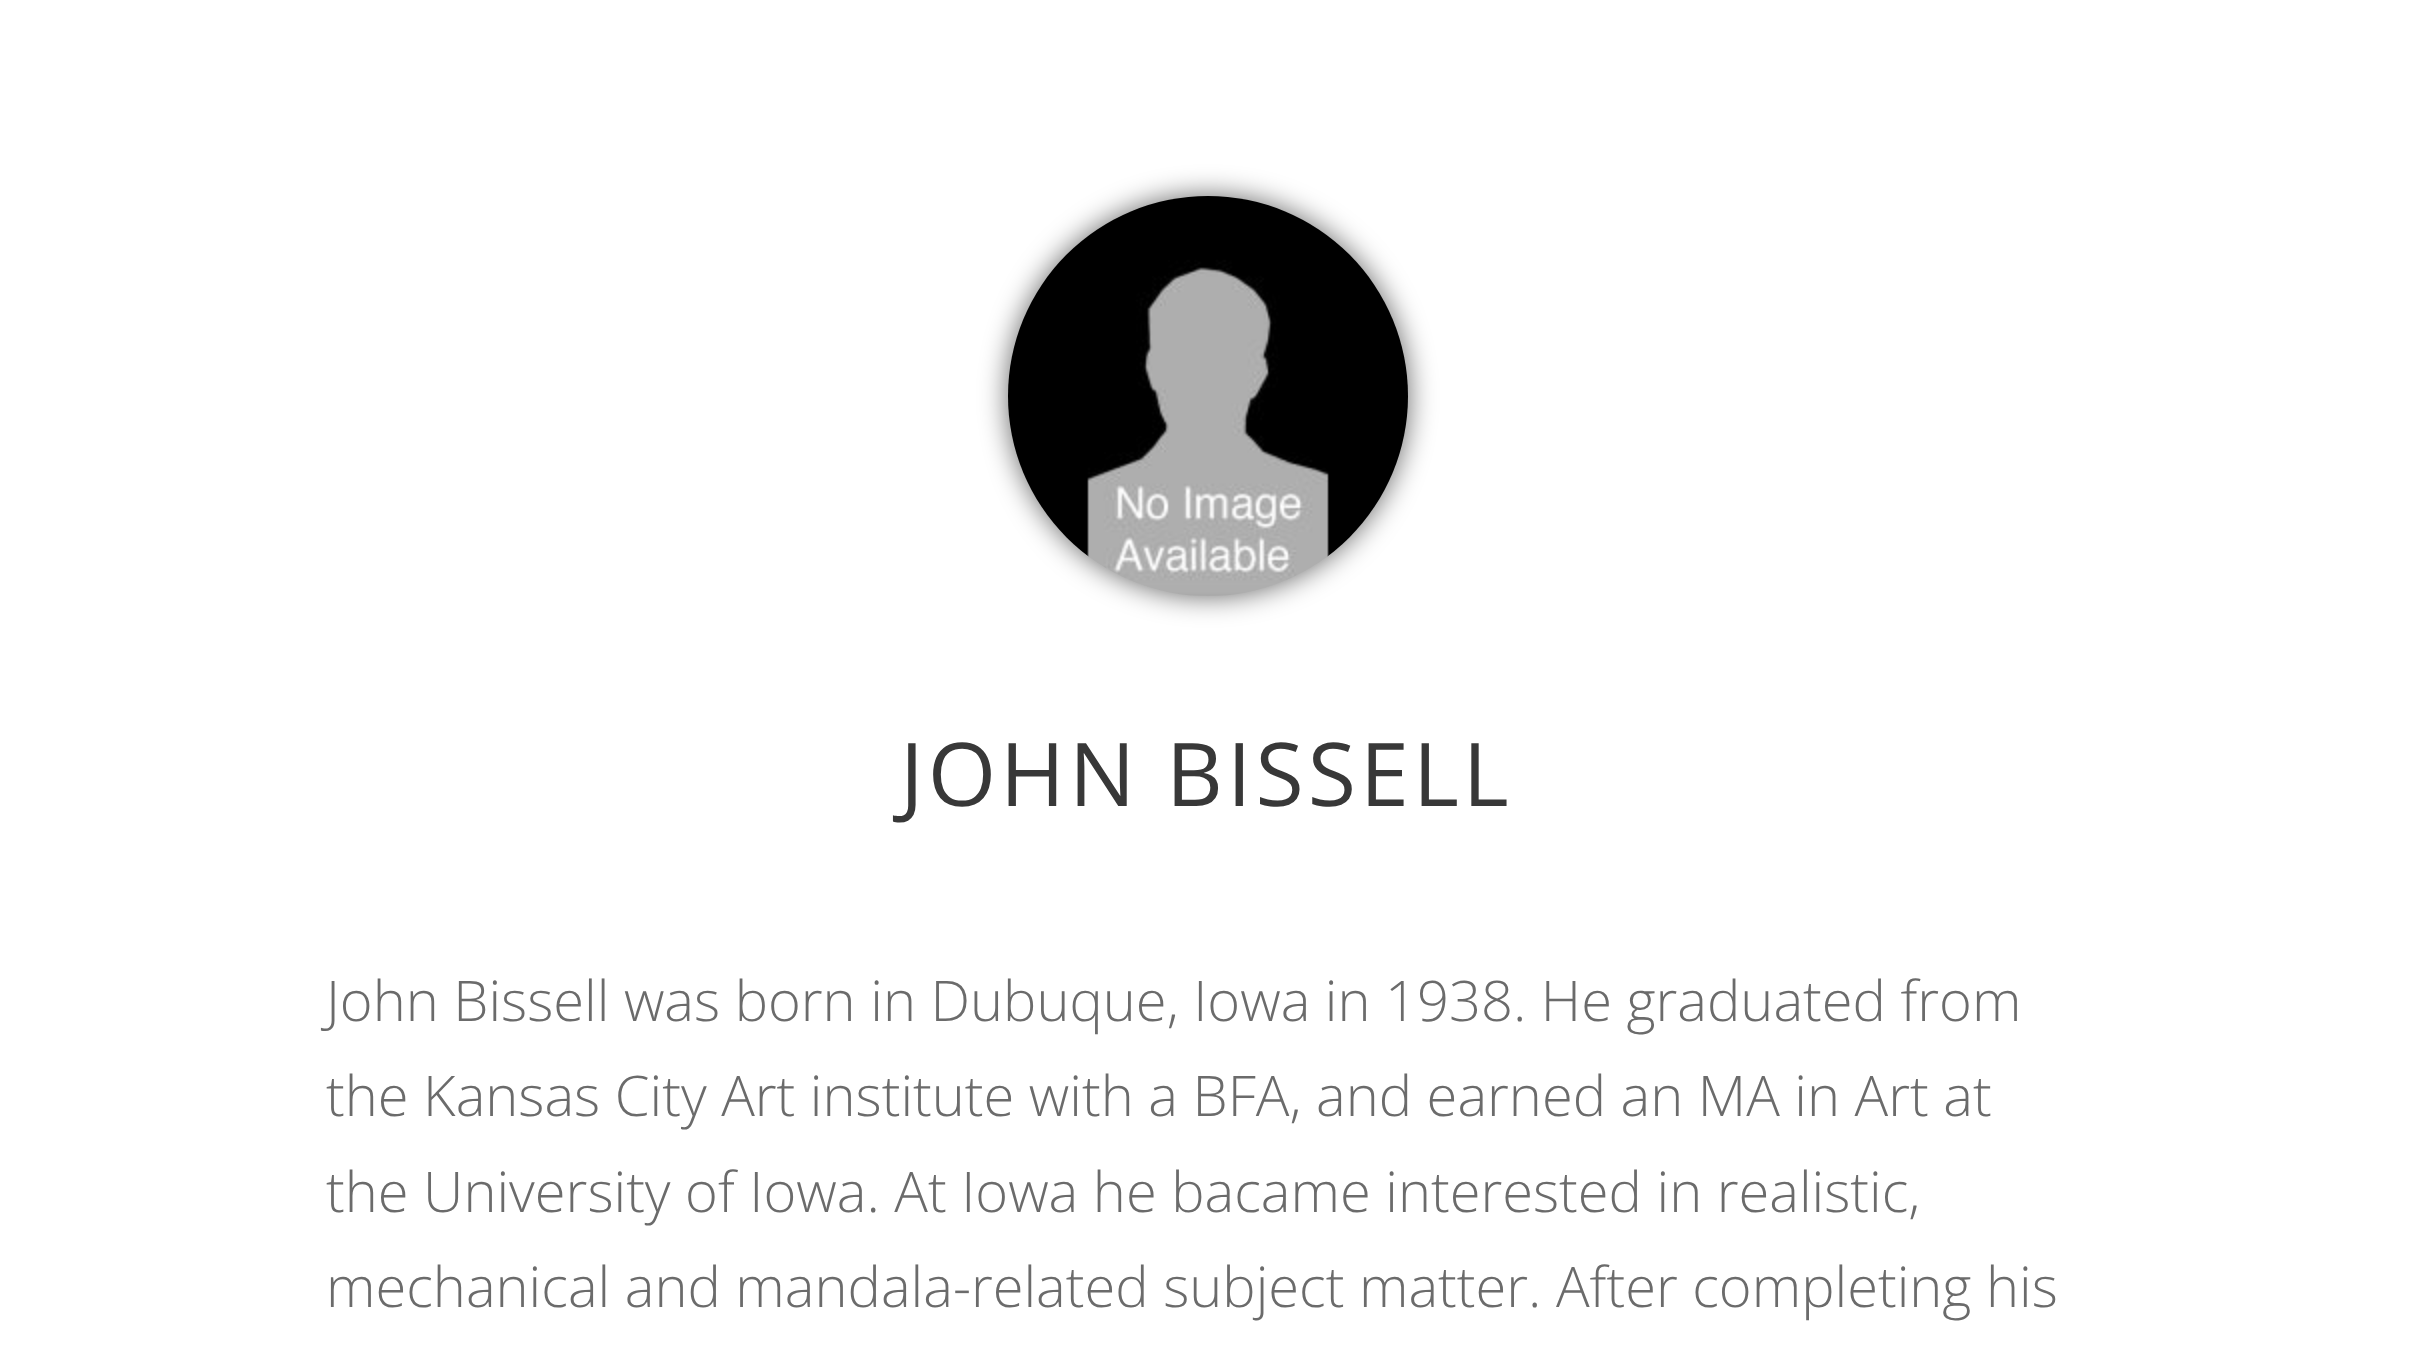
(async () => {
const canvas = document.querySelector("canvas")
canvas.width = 2409
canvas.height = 1370
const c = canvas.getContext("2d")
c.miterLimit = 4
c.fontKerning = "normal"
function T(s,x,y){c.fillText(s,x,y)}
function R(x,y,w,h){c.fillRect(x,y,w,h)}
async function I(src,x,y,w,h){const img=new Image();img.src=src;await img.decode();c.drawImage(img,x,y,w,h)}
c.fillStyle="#fff"
R(0,0,2409,1370)
c.fillStyle="#00000099"
c.filter="blur(14px)"
c.beginPath()
c.roundRect(1008,196,400,400,200)
c.fill()
c.filter="none"
await I("1.png",1008,196,400,400)
c.letterSpacing="4px"
c.font="88px Open Sans"
c.fillStyle="#383838"
T("JOHN BISSELL",900,806)
c.letterSpacing="0px"
c.font="300 56px Open Sans"
c.fillStyle="#6b6b6b"
T("John Bissell was born in Dubuque, Iowa in 1938. He graduated from",326,1021)
T("the Kansas City Art institute with a BFA, and earned an MA in Art at",326,1116)
T("the University of Iowa. At Iowa he bacame interested in realistic,",326,1212)
T("mechanical and mandala-related subject matter. After completing his",326,1307)
})()
